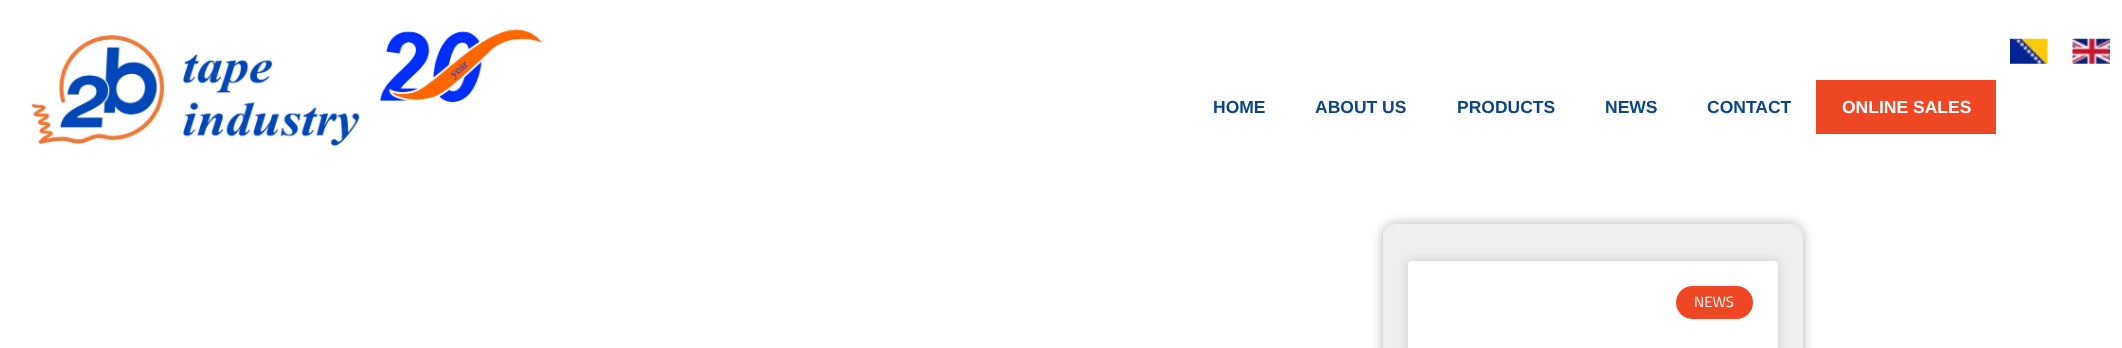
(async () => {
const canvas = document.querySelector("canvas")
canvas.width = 2122
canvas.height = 348
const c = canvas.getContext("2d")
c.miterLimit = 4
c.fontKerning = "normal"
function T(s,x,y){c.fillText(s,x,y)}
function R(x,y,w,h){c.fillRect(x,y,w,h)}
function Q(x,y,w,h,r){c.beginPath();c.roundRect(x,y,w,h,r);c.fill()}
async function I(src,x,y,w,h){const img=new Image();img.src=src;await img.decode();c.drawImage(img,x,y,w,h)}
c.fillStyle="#fff"
R(0,0,2122,348)
await I("1.png",31,35,329,111)
await I("2.png",379,29,164,74)
await I("3.png",2010,38,38,26)
await I("4.png",2072,38,38,26)
c.font="bold 17.5px Liberation Sans"
c.fillStyle="#0d4583"
T("HOME",1213,113)
T("ABOUT US",1315,113)
T("PRODUCTS",1457,113)
T("NEWS",1605,113)
T("CONTACT",1707,113)
c.fillStyle="#ef4623"
R(1816,80,180,54)
c.fillStyle="#fff"
T("ONLINE SALES",1842,113)
c.fillStyle="#0000004d"
c.filter="blur(6px)"
c.beginPath()
c.roundRect(1383,224,420,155,13)
c.fill()
c.filter="none"
c.fillStyle="#efefef"
Q(1383,224,420,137,13)
c.fillStyle="#00000026"
c.filter="blur(6px)"
c.beginPath()
c.roundRect(1408,261,370,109,4)
c.fill()
c.filter="none"
c.fillStyle="#fff"
Q(1408,261,370,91,4)
c.fillStyle="#ef4623"
Q(1676,286,77,33,16.5)
c.font="15px Titillium Web"
c.fillStyle="#fff"
T("NEWS",1694,307)
})()
